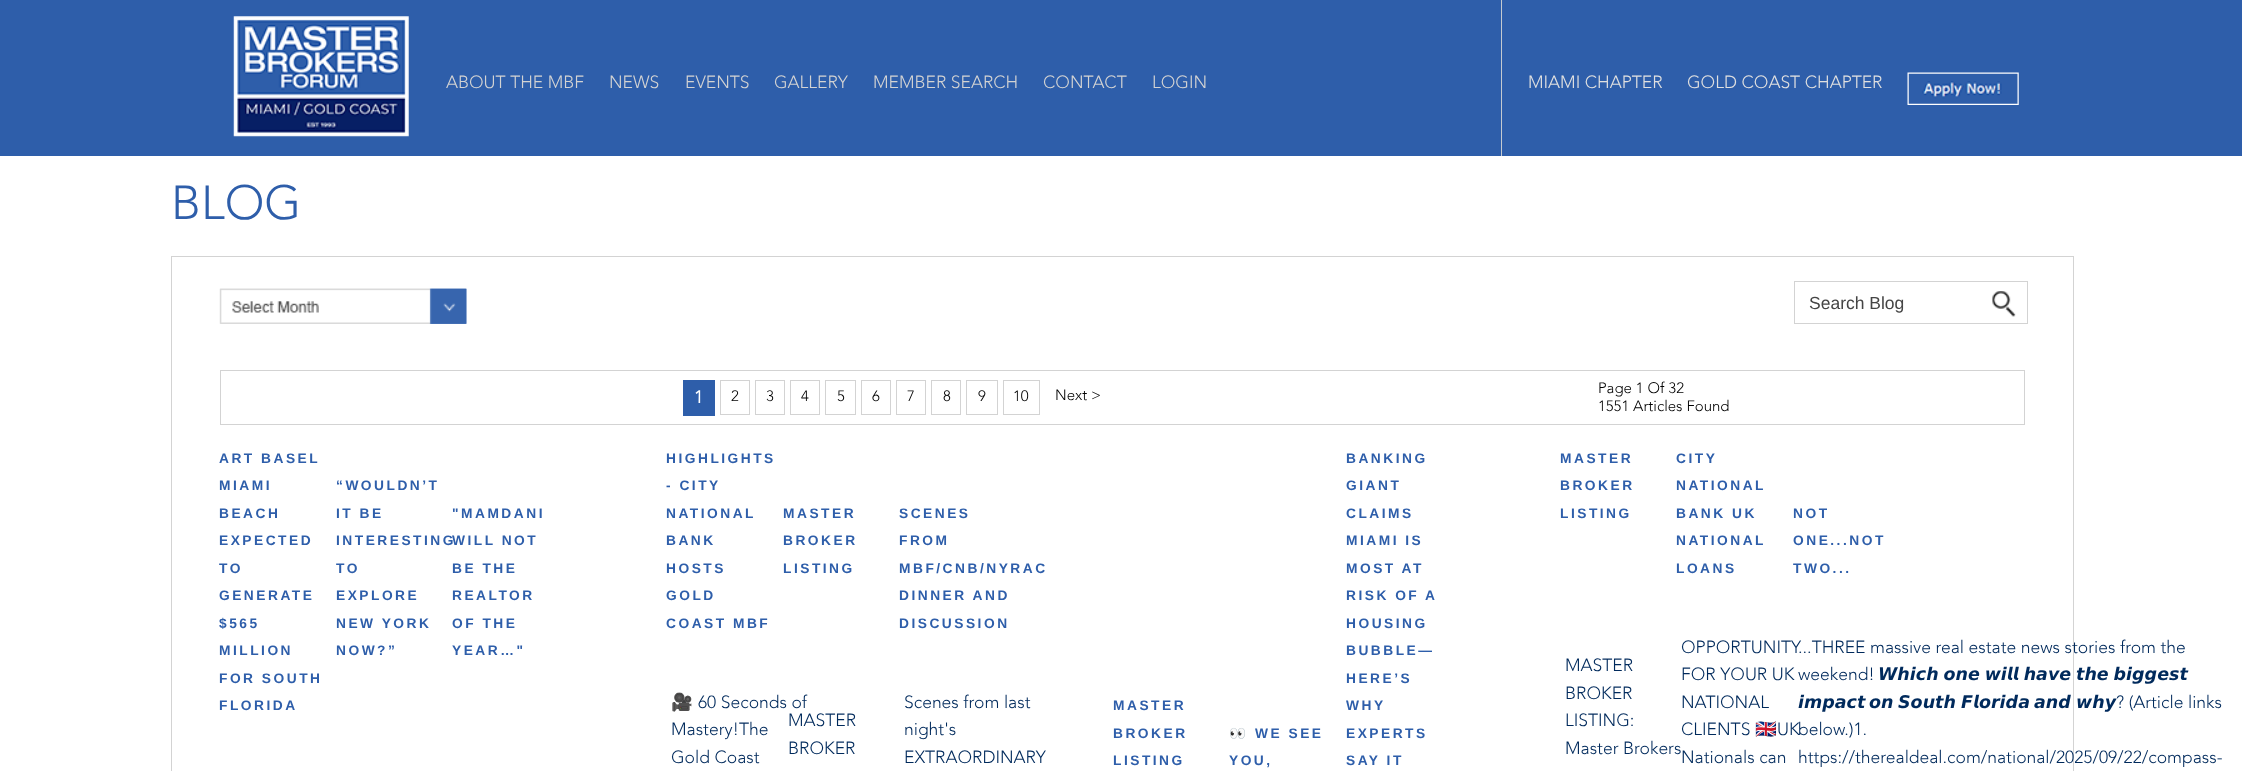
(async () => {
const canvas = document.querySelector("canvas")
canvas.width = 2242
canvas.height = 771
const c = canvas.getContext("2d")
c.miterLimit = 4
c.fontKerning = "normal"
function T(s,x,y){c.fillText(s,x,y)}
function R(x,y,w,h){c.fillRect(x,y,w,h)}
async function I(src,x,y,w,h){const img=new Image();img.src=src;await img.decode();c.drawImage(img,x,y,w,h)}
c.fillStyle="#fff"
R(0,0,2242,771)
c.fillStyle="#2e5eaa"
R(0,0,2242,156)
await I("1.png",233,16,176,121)
c.font="300 17.5px Avenir"
c.fillStyle="#d3d3d3"
T("ABOUT THE MBF",446,88)
T("NEWS",609,88)
T("EVENTS",685,88)
T("GALLERY",774,88)
T("MEMBER SEARCH",873,88)
T("CONTACT",1043,88)
T("LOGIN",1152,88)
c.fillStyle="#c4cad0"
R(1501,0,1,156)
c.fillStyle="#e0e0e0"
T("MIAMI CHAPTER",1528,88)
T("GOLD COAST CHAPTER",1687,88)
await I("2.png",1907,72,112,33)
c.font="300 47.5px Avenir"
c.fillStyle="#2e5eaa"
T("BLOG",171,219)
c.strokeStyle="#d3d3d3"
c.strokeRect(171.5,256.5,1902,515)
await I("3.png",219,288,248,36)
await I("4.png",220,288,247,36)
c.strokeRect(1794.5,281.5,233,42)
c.font="17.5px Liberation Sans"
c.fillStyle="#454545"
T("Search Blog",1809,309)
await I("5.png",1992,291,24,26)
c.strokeRect(220.5,370.5,1804,54)
c.fillStyle="#2e5eaa"
R(683,380,32,36)
c.font="bold 17.5px Avenir"
c.fillStyle="#fff"
T("1",694,403)
c.strokeRect(720.5,380.5,29,34)
c.font="300 15px Avenir"
c.fillStyle="#000"
T("2",731,401)
c.strokeRect(755.5,380.5,29,34)
T("3",766,401)
c.strokeRect(790.5,380.5,29,34)
T("4",801,401)
c.strokeRect(825.5,380.5,30,34)
T("5",837,401)
c.strokeRect(861.5,380.5,29,34)
T("6",872,401)
c.strokeRect(896.5,380.5,29,34)
T("7",907,401)
c.strokeRect(931.5,380.5,29,34)
T("8",943,401)
c.strokeRect(966.5,380.5,31,34)
T("9",978,401)
c.strokeRect(1003.5,380.5,36,34)
T("10",1013,401)
T("Next >",1055,400)
T("Page 1 Of 32",1598,393)
T("1551 Articles Found",1598,411)
c.letterSpacing="2.5px"
c.font="bold 13.75px Liberation Sans"
c.fillStyle="#2e5eaa"
T("ART BASEL",219,463)
T("MIAMI",219,490)
T("BEACH",219,518)
T("EXPECTED",219,545)
T("TO",219,573)
T("GENERATE",219,600)
T("$565",219,628)
T("MILLION",219,655)
T("FOR SOUTH",219,683)
T("FLORIDA",219,710)
T("“WOULDN’T",336,490)
T("IT BE",336,518)
T("INTERESTING",336,545)
T("TO",336,573)
T("EXPLORE",336,600)
T("NEW YORK",336,628)
T("NOW?”",336,655)
T("\"MAMDANI",452,518)
T("WILL NOT",452,545)
T("BE THE",452,573)
T("REALTOR",452,600)
T("OF THE",452,628)
T("YEAR…\"",452,655)
T("HIGHLIGHTS",666,463)
T("- CITY",666,490)
T("NATIONAL",666,518)
T("BANK",666,545)
T("HOSTS",666,573)
T("GOLD",666,600)
T("COAST MBF",666,628)
c.letterSpacing="0px"
c.font="17.5px Noto Color Emoji"
c.fillStyle="#002a5c"
T("🎥",671,708)
c.font="300 17.5px Avenir"
T("60 Seconds of",698,708)
T("Mastery!The",671,735)
T("Gold Coast",671,763)
c.letterSpacing="2.5px"
c.font="bold 13.75px Liberation Sans"
c.fillStyle="#2e5eaa"
T("MASTER",783,518)
T("BROKER",783,545)
T("LISTING",783,573)
c.letterSpacing="0px"
c.font="300 17.5px Avenir"
c.fillStyle="#002a5c"
T("MASTER",788,726)
T("BROKER",788,754)
c.letterSpacing="2.5px"
c.font="bold 13.75px Liberation Sans"
c.fillStyle="#2e5eaa"
T("SCENES",899,518)
T("FROM",899,545)
T("MBF/CNB/NYRAC",899,573)
T("DINNER AND",899,600)
T("DISCUSSION",899,628)
c.letterSpacing="0px"
c.font="300 17.5px Avenir"
c.fillStyle="#002a5c"
T("Scenes from last",904,708)
T("night's",904,735)
T("EXTRAORDINARY",904,763)
c.letterSpacing="2.5px"
c.font="bold 13.75px Liberation Sans"
c.fillStyle="#2e5eaa"
T("MASTER",1113,710)
T("BROKER",1113,738)
T("LISTING",1113,765)
c.font="bold 13.75px Noto Color Emoji"
T("👀",1229,738)
c.font="bold 13.75px Liberation Sans"
T("WE SEE",1255,738)
T("YOU,",1229,765)
T("BANKING",1346,463)
T("GIANT",1346,490)
T("CLAIMS",1346,518)
T("MIAMI IS",1346,545)
T("MOST AT",1346,573)
T("RISK OF A",1346,600)
T("HOUSING",1346,628)
T("BUBBLE—",1346,655)
T("HERE’S",1346,683)
T("WHY",1346,710)
T("EXPERTS",1346,738)
T("SAY IT",1346,765)
T("MASTER",1560,463)
T("BROKER",1560,490)
T("LISTING",1560,518)
c.letterSpacing="0px"
c.font="300 17.5px Avenir"
c.fillStyle="#002a5c"
T("MASTER",1565,671)
T("BROKER",1565,699)
T("LISTING:",1565,726)
T("Master Brokers",1565,754)
c.letterSpacing="2.5px"
c.font="bold 13.75px Liberation Sans"
c.fillStyle="#2e5eaa"
T("CITY",1676,463)
T("NATIONAL",1676,490)
T("BANK UK",1676,518)
T("NATIONAL",1676,545)
T("LOANS",1676,573)
c.letterSpacing="0px"
c.font="300 17.5px Avenir"
c.fillStyle="#002a5c"
T("OPPORTUNITY",1681,653)
T("FOR YOUR UK",1681,680)
T("NATIONAL",1681,708)
T("CLIENTS",1681,735)
c.font="17.5px Noto Color Emoji"
T("🇬🇧",1755,735)
c.font="300 17.5px Avenir"
T("UK",1777,735)
T("Nationals can",1681,763)
c.letterSpacing="2.5px"
c.font="bold 13.75px Liberation Sans"
c.fillStyle="#2e5eaa"
T("NOT",1793,518)
T("ONE...NOT",1793,545)
T("TWO...",1793,573)
c.letterSpacing="0px"
c.font="300 17.5px Avenir"
c.fillStyle="#002a5c"
T("...THREE massive real estate news stories from the",1798,653)
T("weekend!",1798,680)
c.wordSpacing="-1.25px"
c.font="italic bold 17.5px DejaVu Sans"
T("𝙒𝙝𝙞𝙘𝙝 𝙤𝙣𝙚 𝙬𝙞𝙡𝙡 𝙝𝙖𝙫𝙚 𝙩𝙝𝙚 𝙗𝙞𝙜𝙜𝙚𝙨𝙩",1878,680)
c.wordSpacing="0px"
T("𝙞𝙢𝙥𝙖𝙘𝙩",1798,708)
T("𝙤𝙣",1869,708)
T("𝙎𝙤𝙪𝙩𝙝",1898,708)
T("𝙁𝙡𝙤𝙧𝙞𝙙𝙖",1961,708)
T("𝙖𝙣𝙙",2034,708)
T("𝙬𝙝𝙮",2076,708)
c.font="300 17.5px Avenir"
T("? (Article links",2116,708)
T("below.)1.",1798,735)
T("https://therealdeal.com/national/2025/09/22/compass-",1798,763)
})()
